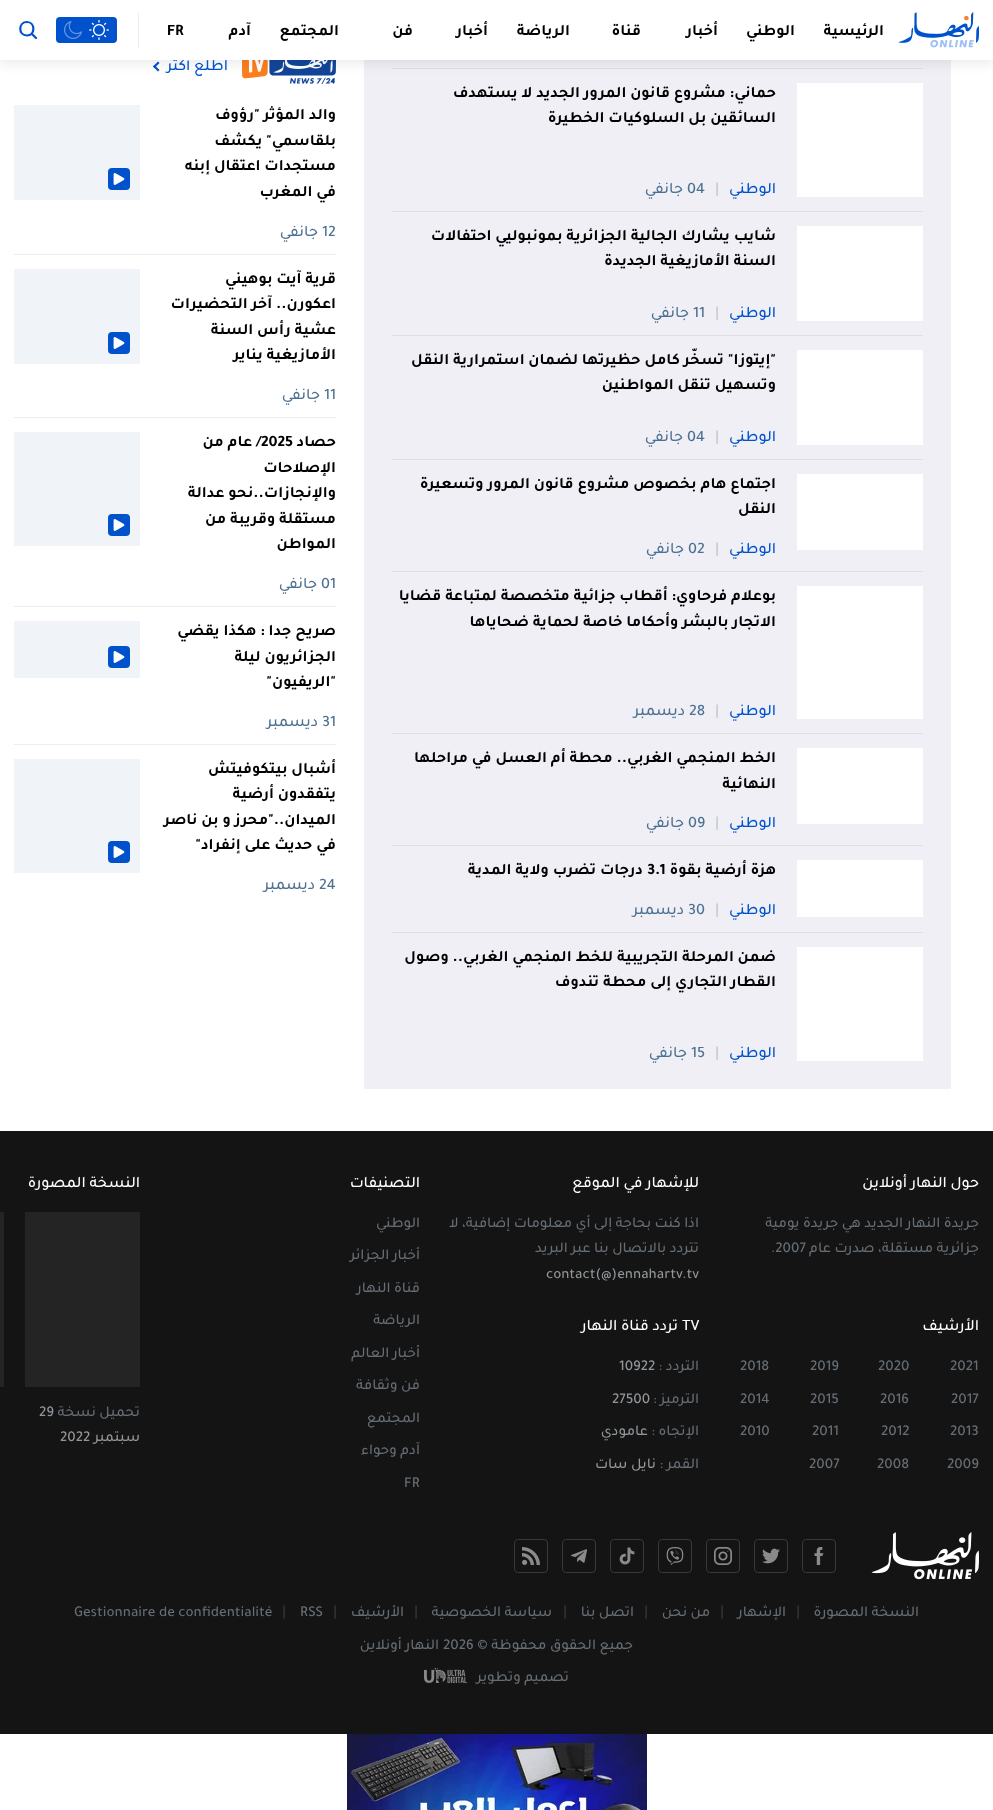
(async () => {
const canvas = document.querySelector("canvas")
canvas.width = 993
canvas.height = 1810
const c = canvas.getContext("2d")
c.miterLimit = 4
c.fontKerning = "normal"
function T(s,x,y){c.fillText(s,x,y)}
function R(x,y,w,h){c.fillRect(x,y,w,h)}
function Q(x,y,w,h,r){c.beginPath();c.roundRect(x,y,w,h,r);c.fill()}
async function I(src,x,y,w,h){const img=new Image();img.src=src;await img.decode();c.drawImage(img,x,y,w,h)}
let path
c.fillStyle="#fff"
R(0,0,993,1810)
c.fillStyle="#efeff5"
R(364,60,587,1029)
c.fillStyle="#dfdfe4"
R(392,68,531,1)
await I("4.png",242,60,94,24)
c.fillStyle="#0052cc"
path = new Path2D("M153 66.5l5-5l1.5 1.5l-5 5z")
c.fill(path)
path = new Path2D("M153 66.5l1.5-1.5l5 5l-1.5 1.5z")
c.fill(path)
c.fillStyle="#00000014"
c.filter="blur(6px)"
c.beginPath()
c.rect(0,4,993,60)
c.fill()
c.filter="none"
c.direction="rtl"
c.font="500 16px Tajawal"
c.fillStyle="#0052cc"
T("اطلع أكثر",228,70)
c.fillStyle="#fff"
R(0,0,993,60)
await I("1.png",898,12,81,36)
c.font="bold 16px Tajawal"
c.fillStyle="#000"
T("الرئيسية",884,35)
T("الوطني",795,35)
T("أخبار",718,35)
T("قناة",641,35)
T("الرياضة",570,35)
T("أخبار",488,35)
T("فن",413,35)
T("المجتمع",339,35)
T("آدم",251,35)
c.direction="ltr"
T("FR",167,35)
c.fillStyle="#ededf0"
R(138,13,1,35)
c.fillStyle="#0052cc"
Q(56,17,61,26,4)
await I("2.png",89,20,20,20)
await I("3.png",64,21,18,18)
path = new Path2D("M36 38l-3.5-3.5zm-9-16c8.5 0 8.5 13.5 0 13.5c-9 0-9-13.5 0-13.5z")
c.strokeStyle="#0052cc"
c.lineWidth=2.2
c.lineJoin="round"
c.stroke(path)
c.fillStyle="#dfdfe4"
R(392,211,531,1)
c.fillStyle="#fff"
R(797,83,126,114)
c.direction="rtl"
c.fillStyle="#000"
T("حماني: مشروع قانون المرور الجديد لا يستهدف",776,97)
T("السائقين بل السلوكيات الخطيرة",776,122)
c.font="500 16px Tajawal"
c.fillStyle="#0052cc"
T("الوطني",776,193)
c.direction="ltr"
c.fillStyle="#bbc5ce"
T("|",715,193)
c.fillStyle="#4d7192"
T("04",687,193)
c.direction="rtl"
T("جانفي",683,193)
c.fillStyle="#dfdfe4"
R(392,335,531,1)
c.fillStyle="#fff"
R(797,226,126,95)
c.font="bold 16px Tajawal"
c.fillStyle="#000"
T("شايب يشارك الجالية الجزائرية بمونبوليي احتفالات",776,240)
T("السنة الأمازيغية الجديدة",776,265)
c.font="500 16px Tajawal"
c.fillStyle="#0052cc"
T("الوطني",776,317)
c.direction="ltr"
c.fillStyle="#bbc5ce"
T("|",715,317)
c.fillStyle="#4d7192"
T("11",693,317)
c.direction="rtl"
T("جانفي",689,317)
c.fillStyle="#dfdfe4"
R(392,459,531,1)
c.fillStyle="#fff"
R(797,350,126,95)
c.font="bold 16px Tajawal"
c.fillStyle="#000"
T("\"إيتوزا\" تسخّر كامل حظيرتها لضمان استمرارية النقل",776,364)
T("وتسهيل تنقل المواطنين",776,389)
c.font="500 16px Tajawal"
c.fillStyle="#0052cc"
T("الوطني",776,441)
c.direction="ltr"
c.fillStyle="#bbc5ce"
T("|",715,441)
c.fillStyle="#4d7192"
T("04",687,441)
c.direction="rtl"
T("جانفي",683,441)
c.fillStyle="#dfdfe4"
R(392,571,531,1)
c.fillStyle="#fff"
R(797,474,126,76)
c.font="bold 16px Tajawal"
c.fillStyle="#000"
T("اجتماع هام بخصوص مشروع قانون المرور وتسعيرة",776,488)
T("النقل",776,513)
c.font="500 16px Tajawal"
c.fillStyle="#0052cc"
T("الوطني",776,553)
c.direction="ltr"
c.fillStyle="#bbc5ce"
T("|",715,553)
c.fillStyle="#4d7192"
T("02",688,553)
c.direction="rtl"
T("جانفي",684,553)
c.fillStyle="#dfdfe4"
R(392,733,531,1)
c.fillStyle="#fff"
R(797,586,126,133)
c.font="bold 16px Tajawal"
c.fillStyle="#000"
T("بوعلام فرحاوي: أقطاب جزائية متخصصة لمتباعة قضايا",776,600)
T("الاتجار بالبشر وأحكاما خاصة لحماية ضحاياها",776,626)
c.font="500 16px Tajawal"
c.fillStyle="#0052cc"
T("الوطني",776,715)
c.direction="ltr"
c.fillStyle="#bbc5ce"
T("|",715,715)
c.fillStyle="#4d7192"
T("28",689,715)
c.direction="rtl"
T("ديسمبر",685,715)
c.fillStyle="#dfdfe4"
R(392,845,531,1)
c.fillStyle="#fff"
R(797,748,126,76)
c.font="bold 16px Tajawal"
c.fillStyle="#000"
T("الخط المنجمي الغربي.. محطة أم العسل في مراحلها",776,762)
T("النهائية",776,788)
c.font="500 16px Tajawal"
c.fillStyle="#0052cc"
T("الوطني",776,827)
c.direction="ltr"
c.fillStyle="#bbc5ce"
T("|",715,827)
c.fillStyle="#4d7192"
T("09",688,827)
c.direction="rtl"
T("جانفي",684,827)
c.fillStyle="#dfdfe4"
R(392,932,531,1)
c.fillStyle="#fff"
R(797,860,126,57)
c.font="bold 16px Tajawal"
c.fillStyle="#000"
T("هزة أرضية بقوة",776,874)
c.direction="ltr"
T("3.1",647,874)
c.direction="rtl"
T("درجات تضرب ولاية المدية",643,874)
c.font="500 16px Tajawal"
c.fillStyle="#0052cc"
T("الوطني",776,914)
c.direction="ltr"
c.fillStyle="#bbc5ce"
T("|",715,914)
c.fillStyle="#4d7192"
T("30",688,914)
c.direction="rtl"
T("ديسمبر",684,914)
c.fillStyle="#fff"
R(797,947,126,114)
c.font="bold 16px Tajawal"
c.fillStyle="#000"
T("ضمن المرحلة التجريبية للخط المنجمي الغربي.. وصول",776,961)
T("القطار التجاري إلى محطة تندوف",776,986)
c.font="500 16px Tajawal"
c.fillStyle="#0052cc"
T("الوطني",776,1057)
c.direction="ltr"
c.fillStyle="#bbc5ce"
T("|",715,1057)
c.fillStyle="#4d7192"
T("15",691,1057)
c.direction="rtl"
T("جانفي",687,1057)
c.fillStyle="#ededf0"
R(14,254,322,1)
c.font="bold 16px Tajawal"
c.fillStyle="#000"
T("والد المؤثر \"رؤوف",336,119)
T("بلقاسمي\" يكشف",336,145)
T("مستجدات اعتقال إبنه",336,170)
T("في المغرب",336,196)
c.direction="ltr"
c.font="500 16px Tajawal"
c.fillStyle="#4d7192"
T("12",322,236)
c.direction="rtl"
T("جانفي",318,236)
c.fillStyle="#f0f3f7"
R(14,105,126,95)
c.fillStyle="#0052cc"
Q(108,168,22,22,4)
await I("5.png",113,173,12,12)
c.fillStyle="#ededf0"
R(14,417,322,1)
c.font="bold 16px Tajawal"
c.fillStyle="#000"
T("قرية آيت بوهيني",336,283)
T("اعكورن.. آخر التحضيرات",336,308)
T("عشية رأس السنة",336,334)
T("الأمازيغية يناير",336,359)
c.direction="ltr"
c.font="500 16px Tajawal"
c.fillStyle="#4d7192"
T("11",324,399)
c.direction="rtl"
T("جانفي",320,399)
c.fillStyle="#f0f3f7"
R(14,269,126,95)
c.fillStyle="#0052cc"
Q(108,332,22,22,4)
await I("5.png",113,337,12,12)
c.fillStyle="#ededf0"
R(14,606,322,1)
c.font="bold 16px Tajawal"
c.fillStyle="#000"
T("حصاد",336,446)
c.direction="ltr"
T("2025",261,446)
c.direction="rtl"
T("/ عام من",261,446)
T("الإصلاحات",336,472)
T("والإنجازات..نحو عدالة",336,497)
T("مستقلة وقريبة من",336,523)
T("المواطن",336,548)
c.direction="ltr"
c.font="500 16px Tajawal"
c.fillStyle="#4d7192"
T("01",321,588)
c.direction="rtl"
T("جانفي",317,588)
c.fillStyle="#f0f3f7"
R(14,432,126,114)
c.fillStyle="#0052cc"
Q(108,514,22,22,4)
await I("5.png",113,519,12,12)
c.fillStyle="#ededf0"
R(14,744,322,1)
c.font="bold 16px Tajawal"
c.fillStyle="#000"
T("صريح جدا : هكذا يقضي",336,635)
T("الجزائريون ليلة",336,661)
T("\"الريفيون\"",336,686)
c.direction="ltr"
c.font="500 16px Tajawal"
c.fillStyle="#4d7192"
T("31",322,726)
c.direction="rtl"
T("ديسمبر",318,726)
c.fillStyle="#f0f3f7"
R(14,621,126,57)
c.fillStyle="#0052cc"
Q(108,646,22,22,4)
await I("5.png",113,651,12,12)
c.font="bold 16px Tajawal"
c.fillStyle="#000"
T("أشبال بيتكوفيتش",336,773)
T("يتفقدون أرضية",336,798)
T("الميدان..\"محرز و بن ناصر",336,824)
T("في حديث على إنفراد\"",336,849)
c.direction="ltr"
c.font="500 16px Tajawal"
c.fillStyle="#4d7192"
T("24",319,889)
c.direction="rtl"
T("ديسمبر",315,889)
c.fillStyle="#f0f3f7"
R(14,759,126,114)
c.fillStyle="#0052cc"
Q(108,841,22,22,4)
await I("5.png",113,846,12,12)
c.fillStyle="#141414"
R(0,1131,993,603)
c.fillStyle="#fff"
T("حول النهار أونلاين",979,1187)
c.font="500 15px Tajawal"
c.fillStyle="#666e75"
T("جريدة النهار الجديد هي جريدة يومية",979,1227)
T("جزائرية مستقلة، صدرت عام",979,1252)
c.direction="ltr"
T(".2007",771,1252)
c.direction="rtl"
c.font="500 16px Tajawal"
c.fillStyle="#fff"
T("للإشهار في الموقع",699,1187)
c.font="500 15px Tajawal"
c.fillStyle="#666e75"
T("اذا كنت بحاجة إلى أي معلومات إضافية، لا",699,1227)
T("تتردد بالاتصال بنا عبر البريد",699,1252)
c.direction="ltr"
c.fillStyle="#91969a"
T("contact(@)ennahartv.tv",546,1278)
c.direction="rtl"
c.font="500 16px Tajawal"
c.fillStyle="#fff"
T("الأرشيف",979,1330)
c.direction="ltr"
c.font="500 15px Tajawal"
c.fillStyle="#666e75"
T("2021",950,1370)
T("2020",878,1370)
T("2019",810,1370)
T("2018",740,1370)
T("2017",951,1403)
T("2016",880,1403)
T("2015",810,1403)
T("2014",740,1403)
T("2013",950,1435)
T("2012",881,1435)
T("2011",812,1435)
T("2010",740,1435)
T("2009",947,1468)
T("2008",877,1468)
T("2007",809,1468)
c.font="500 16px Tajawal"
c.fillStyle="#fff"
T("TV",682,1330)
c.direction="rtl"
T("تردد قناة النهار",678,1330)
c.font="500 15px Tajawal"
c.fillStyle="#666e75"
T("التردد :",699,1370)
c.direction="ltr"
c.fillStyle="#91969a"
T("10922",619,1370)
c.direction="rtl"
c.fillStyle="#666e75"
T("الترميز :",699,1403)
c.direction="ltr"
c.fillStyle="#91969a"
T("27500",612,1403)
c.direction="rtl"
c.fillStyle="#666e75"
T("الإتجاه :",699,1435)
c.fillStyle="#91969a"
T("عامودي",648,1435)
c.fillStyle="#666e75"
T("القمر :",699,1468)
c.fillStyle="#91969a"
T("نايل سات",656,1468)
c.font="500 16px Tajawal"
c.fillStyle="#fff"
T("التصنيفات",420,1187)
c.font="500 15px Tajawal"
c.fillStyle="#666e75"
T("الوطني",420,1227)
T("أخبار الجزائر",420,1259)
T("قناة النهار",420,1292)
T("الرياضة",420,1324)
T("أخبار العالم",420,1357)
T("فن وثقافة",420,1389)
T("المجتمع",420,1422)
T("آدم وحواء",420,1454)
c.direction="ltr"
T("FR",404,1487)
c.direction="rtl"
c.font="500 16px Tajawal"
c.fillStyle="#fff"
T("النسخة المصورة",140,1187)
c.fillStyle="#242425"
R(0,1212,4,175)
R(25,1212,115,175)
c.font="500 15px Tajawal"
c.fillStyle="#666e75"
T("تحميل نسخة",140,1416)
c.direction="ltr"
c.fillStyle="#91969a"
T("29",39,1416)
c.direction="rtl"
T("سبتمبر",140,1441)
c.direction="ltr"
T("2022",60,1441)
await I("6.png",871,1532,108,48)
c.beginPath()
c.roundRect(802.5,1539.5,33,33,3.5)
c.strokeStyle="#37393a"
c.lineWidth=1
c.lineJoin="miter"
c.stroke()
await I("7.png",814,1547,10,18)
c.beginPath()
c.roundRect(754.5,1539.5,33,33,3.5)
c.stroke()
await I("8.png",762,1548,18,16)
c.beginPath()
c.roundRect(706.5,1539.5,33,33,3.5)
c.stroke()
await I("9.png",714,1547,18,18)
c.beginPath()
c.roundRect(658.5,1539.5,33,33,3.5)
c.stroke()
await I("10.png",666,1547,18,18)
c.beginPath()
c.roundRect(610.5,1539.5,33,33,3.5)
c.stroke()
await I("11.png",619,1547,16,18)
c.beginPath()
c.roundRect(562.5,1539.5,33,33,3.5)
c.stroke()
await I("12.png",571,1549,16,14)
c.beginPath()
c.roundRect(514.5,1539.5,33,33,3.5)
c.stroke()
await I("13.png",522,1547,18,18)
c.direction="rtl"
c.fillStyle="#666e75"
T("النسخة",919,1616)
T("المصورة",868,1616)
c.direction="ltr"
c.font="500 16px Tajawal"
c.fillStyle="#383a3c"
T("|",796,1616)
c.direction="rtl"
c.font="500 15px Tajawal"
c.fillStyle="#666e75"
T("الإشهار",786,1616)
c.direction="ltr"
c.font="500 16px Tajawal"
c.fillStyle="#383a3c"
T("|",720,1616)
c.direction="rtl"
c.font="500 15px Tajawal"
c.fillStyle="#666e75"
T("من نحن",710,1616)
c.direction="ltr"
c.font="500 16px Tajawal"
c.fillStyle="#383a3c"
T("|",644,1616)
c.direction="rtl"
c.font="500 15px Tajawal"
c.fillStyle="#666e75"
T("اتصل بنا",634,1616)
c.direction="ltr"
c.font="500 16px Tajawal"
c.fillStyle="#383a3c"
T("|",563,1616)
c.direction="rtl"
c.font="500 15px Tajawal"
c.fillStyle="#666e75"
T("سياسة الخصوصية",552,1616)
c.direction="ltr"
c.font="500 16px Tajawal"
c.fillStyle="#383a3c"
T("|",414,1616)
c.direction="rtl"
c.font="500 15px Tajawal"
c.fillStyle="#666e75"
T("الأرشيف",404,1616)
c.direction="ltr"
c.font="500 16px Tajawal"
c.fillStyle="#383a3c"
T("|",333,1616)
c.font="500 15px Tajawal"
c.fillStyle="#666e75"
T("RSS",300,1616)
c.font="500 16px Tajawal"
c.fillStyle="#383a3c"
T("|",282,1616)
c.font="500 15px Tajawal"
c.fillStyle="#666e75"
T("Gestionnaire de confidentialité",74,1616)
c.direction="rtl"
T("جميع الحقوق محفوظة ©",633,1649)
c.direction="ltr"
T("2026",443,1649)
c.direction="rtl"
T("النهار أونلاين",439,1649)
T("تصميم وتطوير",569,1681)
await I("14.png",424,1668,43,15)
await I("15.png",347,1734,300,76)
})()
